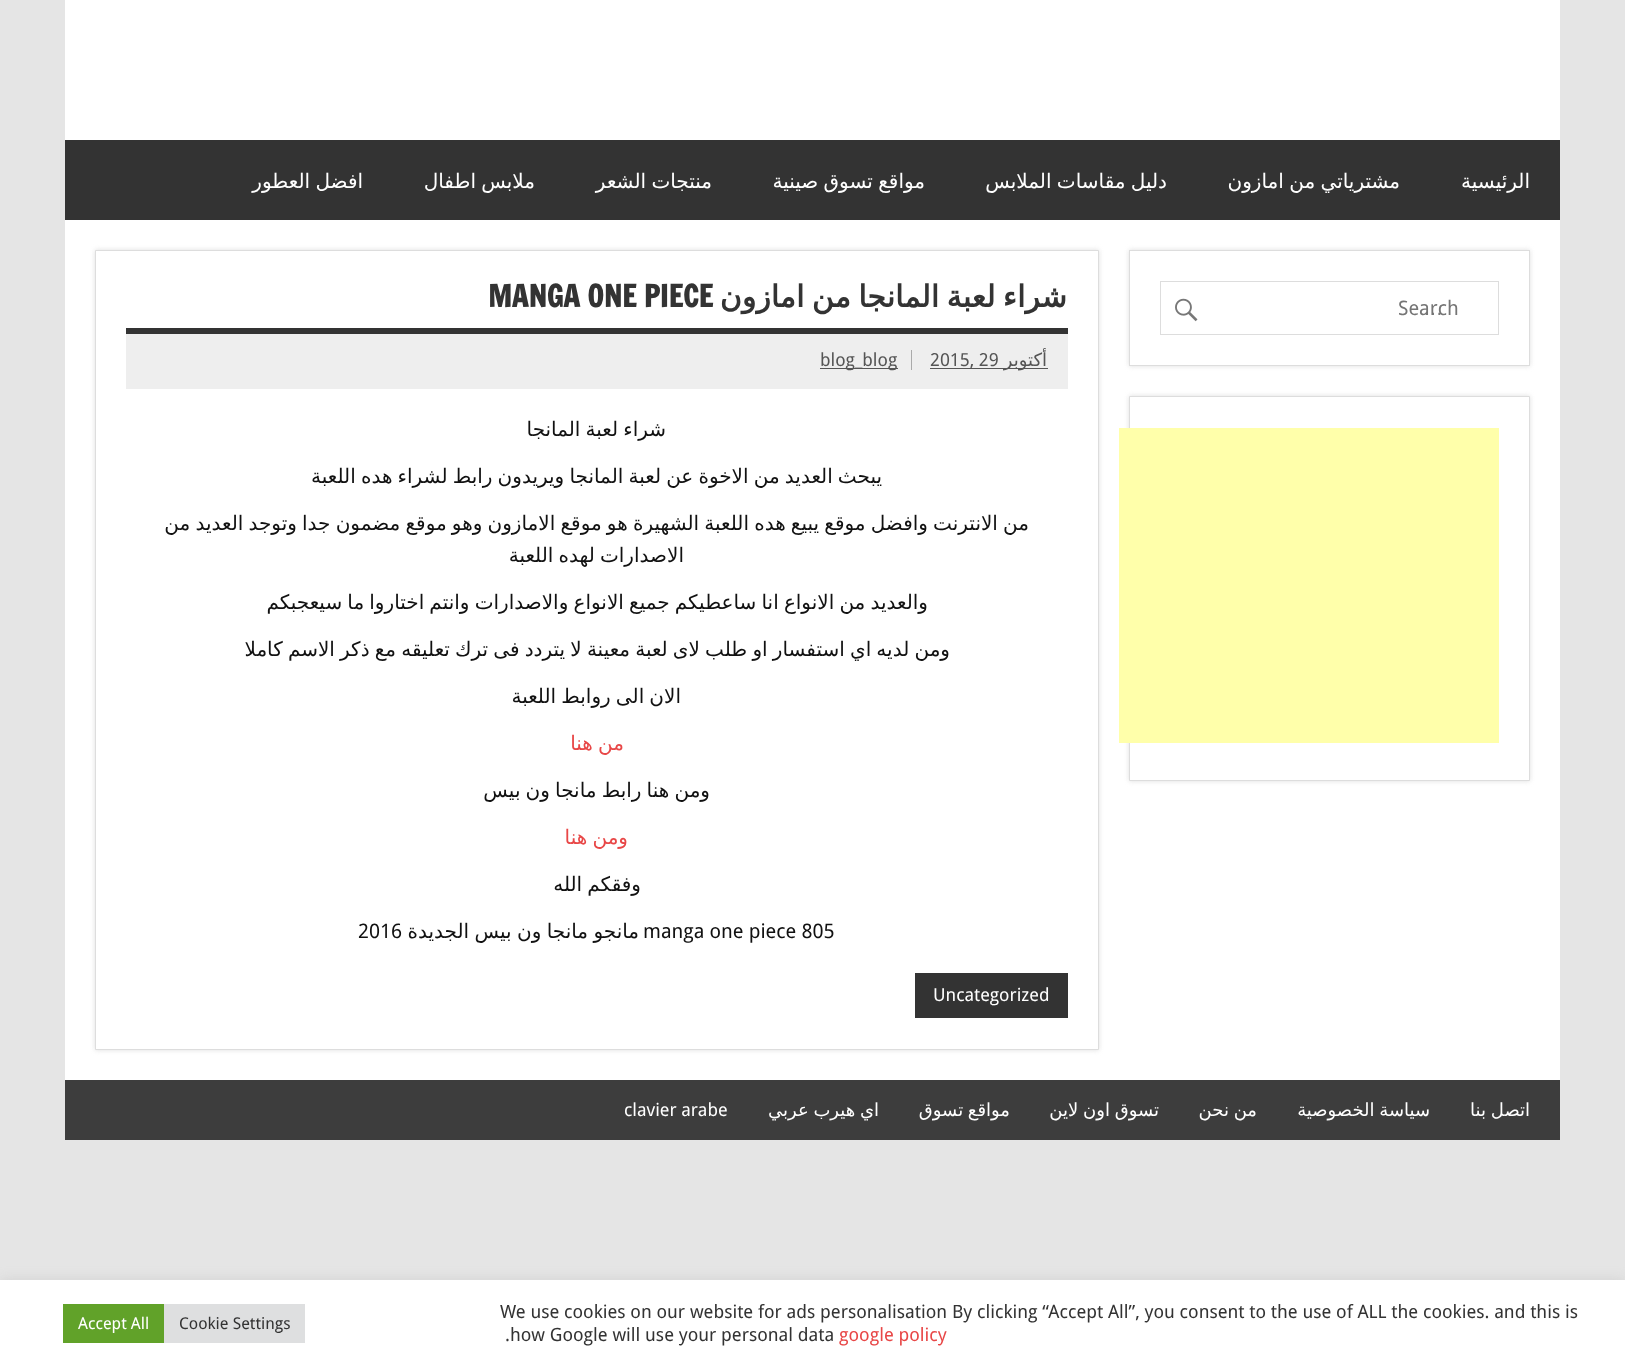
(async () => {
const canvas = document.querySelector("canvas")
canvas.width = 1625
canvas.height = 1366
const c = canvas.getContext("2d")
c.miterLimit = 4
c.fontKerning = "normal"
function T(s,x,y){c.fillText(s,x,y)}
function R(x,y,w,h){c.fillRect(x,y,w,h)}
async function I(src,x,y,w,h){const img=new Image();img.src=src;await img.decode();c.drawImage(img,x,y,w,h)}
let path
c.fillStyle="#e5e5e5"
R(0,0,1625,1366)
c.fillStyle="#fff"
R(65,0,1495,1080)
c.fillStyle="#333"
R(65,140,1495,80)
c.direction="rtl"
c.font="20px DejaVu Sans"
c.fillStyle="#fff"
T("الرئيسية",1530,188)
c.wordSpacing="-1px"
T("مشترياتي من امازون",1400,188)
T("دليل مقاسات الملابس",1167,188)
T("مواقع تسوق صينية",925,188)
T("منتجات الشعر",712,188)
T("ملابس اطفال",535,188)
T("افضل العطور",363,188)
c.save()
path = new Path2D("M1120 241h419v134h-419zm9 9h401v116h-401z")
c.clip(path,"evenodd")
c.fillStyle="#ddd"
c.filter="blur(2.5px)"
c.beginPath()
c.rect(1129,250,401,116)
c.fill()
c.filter="none"
c.restore()
c.strokeStyle="#ddd"
c.strokeRect(1129.5,250.5,400,115)
c.strokeRect(1160.5,281.5,338,53)
c.wordSpacing="0px"
c.direction="ltr"
c.font="20px Droid Sans"
c.fillStyle="#757575"
T("Search",1398,315)
c.font="20px Liberation Sans"
T("…",1423,315)
await I("1.png",1175,298,23,24)
c.fillStyle="#ddd"
c.filter="blur(2.5px)"
c.beginPath()
c.rect(1129,396,401,385)
c.fill()
c.filter="none"
c.fillStyle="#fff"
c.beginPath()
c.rect(1129.5,396.5,400,384)
c.fill()
c.stroke()
c.fillStyle="#ffa"
R(1119,428,380,315)
c.fillStyle="#ddd"
c.filter="blur(2.5px)"
c.beginPath()
c.rect(95,250,1004,800)
c.fill()
c.filter="none"
c.fillStyle="#fff"
c.beginPath()
c.rect(95.5,250.5,1003,799)
c.fill()
c.stroke()
c.fillStyle="#333"
R(126,328,942,6)
c.wordSpacing="-2px"
c.direction="rtl"
c.font="bold 30px DejaVu Sans"
T("شراء لعبة المانجا من امازون",1067,307)
c.wordSpacing="0px"
c.direction="ltr"
c.font="bold 30px Francois One"
T("MANGA ONE PIECE",488,307)
c.fillStyle="#eee"
R(126,334,942,55)
c.fillStyle="#555"
R(930,368,118,1)
c.direction="rtl"
c.font="18px DejaVu Sans"
T("أكتوبر",1047,366)
c.direction="ltr"
c.font="18px Droid Sans"
T("2015, 29",930,366)
R(820,368,78,1)
T("blog_blog",820,366)
c.fillStyle="#aaa"
R(911,350,1,20)
c.wordSpacing="-1.2px"
c.direction="rtl"
c.font="20px DejaVu Sans"
c.fillStyle="#111"
T("شراء لعبة المانجا",666,436)
T("يبحث العديد من الاخوة عن لعبة المانجا ويريدون رابط لشراء هده اللعبة",882,483)
T("من الانترنت وافضل موقع يبيع هده اللعبة الشهيرة هو موقع الامازون وهو موقع مضمون جدا وتوجد العديد من",1029,530)
T("الاصدارات لهده اللعبة",684,562)
T("والعديد من الانواع انا ساعطيكم جميع الانواع والاصدارات وانتم اختاروا ما سيعجبكم",928,609)
T("ومن لديه اي استفسار او طلب لاى لعبة معينة لا يتردد فى ترك تعليقه مع ذكر الاسم كاملا",950,656)
T("الان الى روابط اللعبة",681,703)
c.fillStyle="#e84747"
T("من هنا",624,750)
c.fillStyle="#111"
T("ومن هنا رابط مانجا ون بيس",710,797)
c.fillStyle="#e84747"
T("ومن هنا",628,844)
c.fillStyle="#111"
T("وفقكم الله",641,891)
c.wordSpacing="0px"
c.direction="ltr"
c.font="20px Droid Sans"
T("manga one piece 805",643,938)
c.wordSpacing="-1px"
c.direction="rtl"
c.font="20px DejaVu Sans"
T("مانجو مانجا ون بيس الجديدة",639,938)
c.wordSpacing="0px"
c.direction="ltr"
c.font="20px Droid Sans"
T("2016",358,938)
c.fillStyle="#333"
R(915,973,153,45)
c.font="18px Droid Sans"
c.fillStyle="#fff"
T("Uncategorized",933,1001)
c.fillStyle="#3d3d3d"
R(65,1080,1495,60)
c.wordSpacing="-1px"
c.direction="rtl"
c.font="18px DejaVu Sans"
c.fillStyle="#fff"
T("اتصل بنا",1530,1116)
T("سياسة الخصوصية",1430,1116)
T("من نحن",1257,1116)
T("تسوق اون لاين",1159,1116)
T("مواقع تسوق",1010,1116)
T("اي هيرب عربي",879,1116)
c.wordSpacing="0px"
c.direction="ltr"
c.font="18px Droid Sans"
T("clavier arabe",624,1116)
c.fillStyle="#acabab4d"
c.filter="blur(6px)"
c.beginPath()
c.rect(0,1279,1625,86)
c.fill()
c.filter="none"
c.fillStyle="#fff"
R(0,1280,1625,86)
c.font="18.33px Droid Sans"
c.fillStyle="#333"
T("We use cookies on our website for ads personalisation By clicking “Accept All”, you consent to the use of ALL the cookies. and this is",500,1318)
c.fillStyle="#e84747"
T("google policy",839,1341)
c.fillStyle="#333"
T("how Google will use your personal data",510,1341)
T(".",505,1341)
c.fillStyle="#dedfe0"
R(164,1304,141,39)
c.font="16.25px Droid Sans"
c.fillStyle="#333"
T("Cookie Settings",179,1329)
c.fillStyle="#61a229"
R(63,1304,101,39)
c.fillStyle="#fff"
T("Accept All",78,1329)
})()
